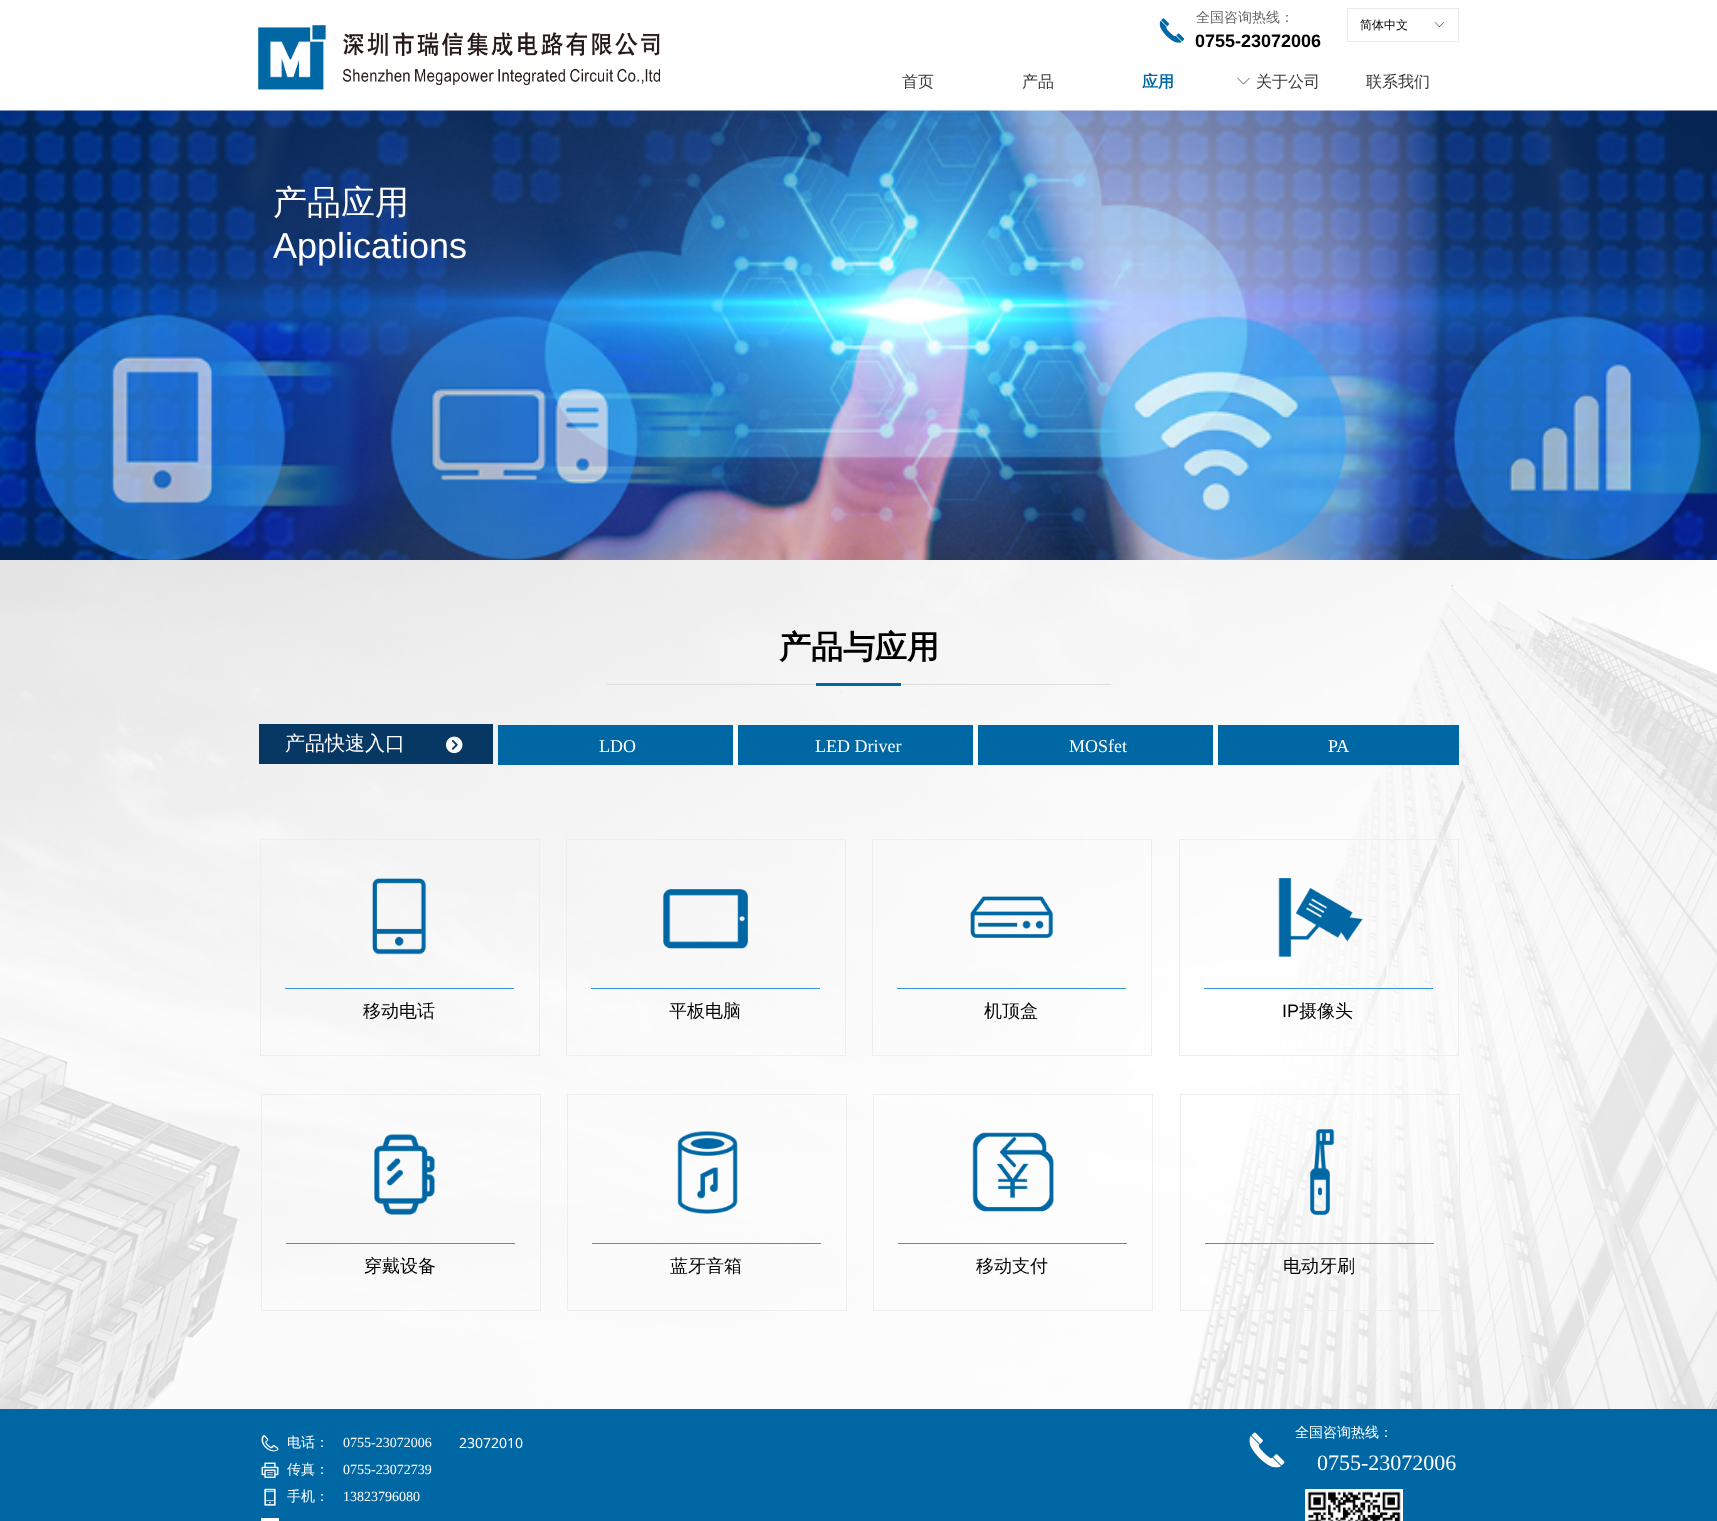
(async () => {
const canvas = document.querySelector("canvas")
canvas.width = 1717
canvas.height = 1521
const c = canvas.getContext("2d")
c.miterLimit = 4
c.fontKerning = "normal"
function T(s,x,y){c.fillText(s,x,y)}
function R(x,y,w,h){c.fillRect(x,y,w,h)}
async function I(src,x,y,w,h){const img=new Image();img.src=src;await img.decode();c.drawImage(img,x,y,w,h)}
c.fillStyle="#fff"
R(0,0,1717,1521)
await I("1.png",258,25,69,65)
await I("2.png",342,32,318,53)
await I("3.png",1159,18,26,25)
c.font="500 14px WenQuanYi Zen Hei"
c.fillStyle="#666"
T("全国咨询热线：",1196,22)
c.strokeStyle="#e6e9ed"
c.strokeRect(1347.5,8.5,111,33)
c.font="500 12px WenQuanYi Zen Hei"
c.fillStyle="#000"
T("简体中文",1360,29)
await I("4.png",1434,22,11,5)
c.font="bold 18px Liberation Sans"
T("0755-23072006",1195,47)
c.font="500 16px WenQuanYi Zen Hei"
c.fillStyle="#383838"
T("首页",902,87)
T("产品",1022,87)
c.font="bold 16px WenQuanYi Zen Hei"
c.fillStyle="#0067a5"
T("应用",1142,87)
await I("5.png",1237,77,13,8)
c.font="500 16px WenQuanYi Zen Hei"
c.fillStyle="#383838"
T("关于公司",1256,87)
T("联系我们",1366,87)
await I("6.png",0,110,1717,450)
c.fillStyle="#ffffff80"
R(0,110,1717,1)
c.font="500 34px WenQuanYi Zen Hei"
c.fillStyle="#fff"
T("产品应用",273,214)
c.font="36px Liberation Sans"
T("Applications",273,258)
await I("7.png",0,560,1717,849)
c.font="bold 32px WenQuanYi Zen Hei"
c.fillStyle="#000"
T("产品与应用",779,658)
c.fillStyle="#ddd"
R(607,684,504,1)
c.fillStyle="#0067a5"
R(816,683,85,3)
c.fillStyle="#073763"
R(259,724,234,40)
c.font="500 20px WenQuanYi Zen Hei"
c.fillStyle="#fff"
T("产品快速入口",285,750)
await I("8.png",446,736,17,18)
c.fillStyle="#0067a5"
R(498,725,235,40)
c.font="18px Liberation Serif"
c.fillStyle="#fff"
T("LDO",599,752)
c.fillStyle="#0067a5"
R(738,725,235,40)
c.fillStyle="#fff"
R(733,725,5,40)
T("LED Driver",815,752)
c.fillStyle="#0067a5"
R(978,725,235,40)
c.fillStyle="#fff"
R(973,725,5,40)
T("MOSfet",1069,752)
c.fillStyle="#0067a5"
R(1218,725,241,40)
c.fillStyle="#fff"
R(1213,725,5,40)
T("PA",1328,752)
c.strokeStyle="#eee"
c.strokeRect(260.5,839.5,279,216)
await I("9.png",372,878,55,77)
c.fillStyle="#3498db"
R(285,988,229,1)
c.font="500 18px WenQuanYi Zen Hei"
c.fillStyle="#000"
T("移动电话",363,1017)
c.strokeRect(566.5,839.5,279,216)
await I("10.png",663,889,85,60)
c.fillStyle="#3498db"
R(591,988,229,1)
c.fillStyle="#000"
T("平板电脑",669,1017)
c.strokeRect(872.5,839.5,279,216)
await I("11.png",970,896,84,42)
c.fillStyle="#3498db"
R(897,988,229,1)
c.fillStyle="#000"
T("机顶盒",984,1017)
c.strokeRect(1179.5,839.5,279,216)
await I("12.png",1278,878,85,79)
c.fillStyle="#3498db"
R(1204,988,229,1)
c.font="18px Liberation Sans"
c.fillStyle="#000"
T("IP",1282,1017)
c.font="500 18px WenQuanYi Zen Hei"
T("摄像头",1299,1017)
c.strokeRect(261.5,1094.5,279,216)
await I("13.png",374,1134,61,81)
c.fillStyle="#3498db"
R(286,1243,229,1)
c.fillStyle="#000"
T("穿戴设备",364,1272)
c.strokeRect(567.5,1094.5,279,216)
await I("14.png",677,1131,61,83)
c.fillStyle="#3498db"
R(592,1243,229,1)
c.fillStyle="#000"
T("蓝牙音箱",670,1272)
c.strokeRect(873.5,1094.5,279,216)
await I("15.png",972,1132,82,80)
c.fillStyle="#3498db"
R(898,1243,229,1)
c.fillStyle="#000"
T("移动支付",976,1272)
c.strokeRect(1180.5,1094.5,279,216)
await I("16.png",1310,1129,25,86)
c.fillStyle="#3498db"
R(1205,1243,229,1)
c.fillStyle="#000"
T("电动牙刷",1283,1272)
c.fillStyle="#0067a5"
R(0,1409,1717,112)
await I("17.png",261,1435,18,17)
c.font="500 14px WenQuanYi Zen Hei"
c.fillStyle="#fff"
T("电话：",287,1447)
c.font="14px Liberation Serif"
T("0755-23072006",343,1447)
await I("18.png",261,1462,18,16)
c.font="500 14px WenQuanYi Zen Hei"
T("传真：",287,1474)
c.font="14px Liberation Serif"
T("0755-23072739",343,1474)
await I("19.png",264,1488,12,18)
c.font="500 14px WenQuanYi Zen Hei"
T("手机：",287,1501)
c.font="14px Liberation Serif"
T("13823796080",343,1501)
R(261,1518,18,3)
c.font="14px Noto Sans"
T("23072010",459,1448)
await I("20.png",1249,1432,36,36)
c.font="500 14px WenQuanYi Zen Hei"
T("全国咨询热线：",1295,1437)
c.font="22px Liberation Serif"
T("0755-23072006",1317,1470)
await I("21.png",1305,1489,98,32)
})()
